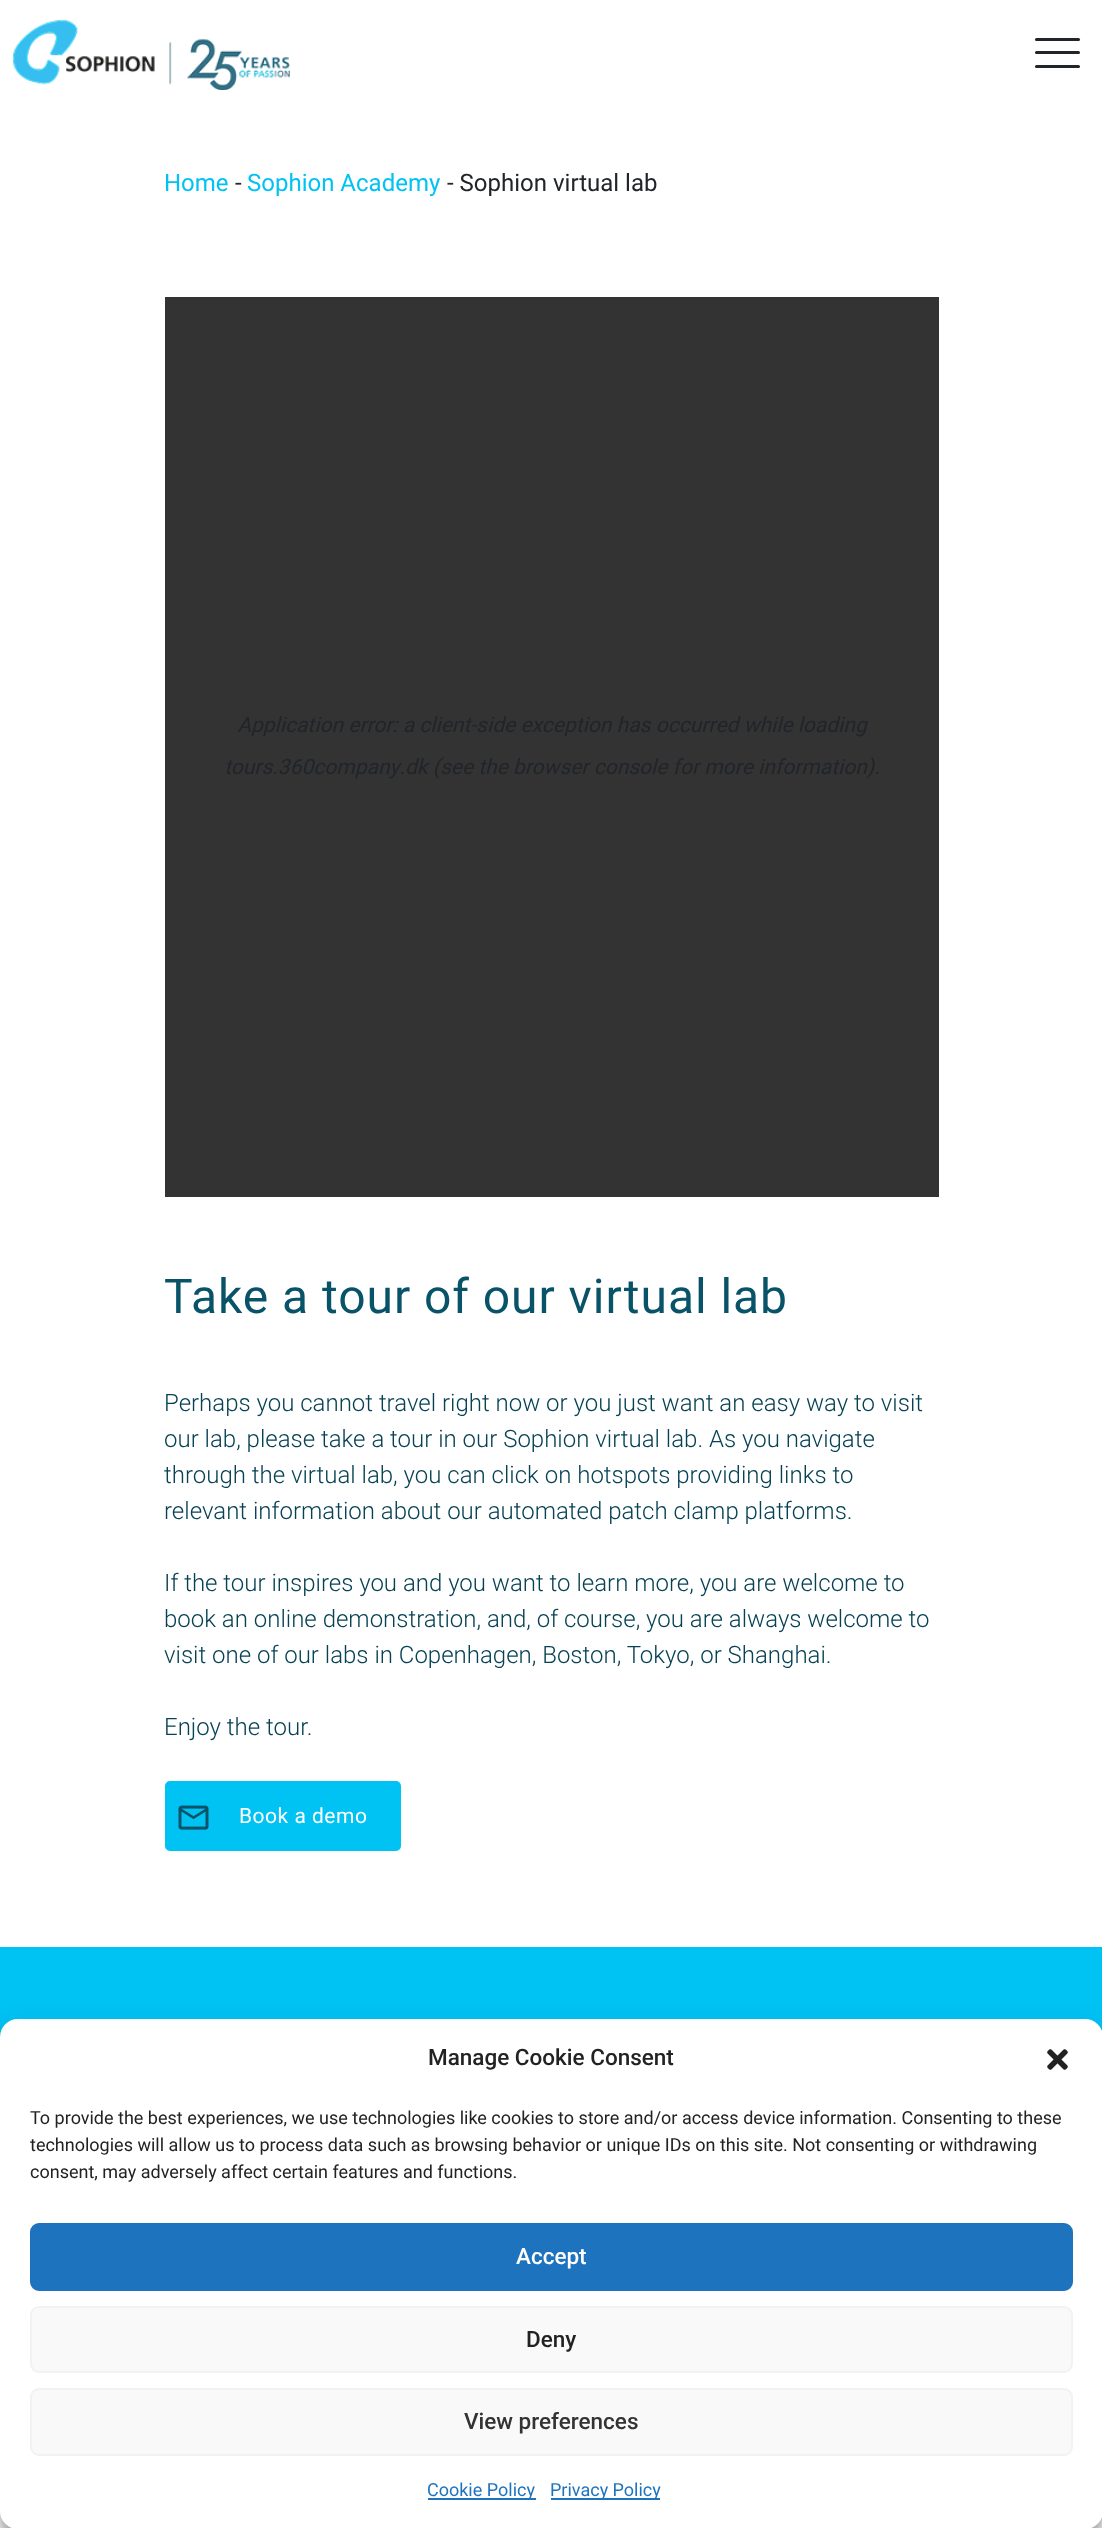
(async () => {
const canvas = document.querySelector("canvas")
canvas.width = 1102
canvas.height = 2528
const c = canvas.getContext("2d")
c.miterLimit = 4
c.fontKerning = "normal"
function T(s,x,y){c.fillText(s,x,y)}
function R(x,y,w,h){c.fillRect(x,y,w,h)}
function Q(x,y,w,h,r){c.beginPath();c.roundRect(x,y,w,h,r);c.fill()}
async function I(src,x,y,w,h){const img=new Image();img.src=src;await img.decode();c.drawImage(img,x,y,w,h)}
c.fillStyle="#fff"
R(0,0,1102,2528)
await I("1.png",12,19,278,71)
c.fillStyle="#212529"
Q(1035,38,45,3,1.5)
Q(1035,51,45,3,1.5)
Q(1035,65,45,3,1.5)
c.font="24px Roboto"
c.fillStyle="#00c2f3"
T("Home",164,191)
c.fillStyle="#212529"
T("-",235,191)
c.fillStyle="#00c2f3"
T("Sophion Academy",247,191)
c.fillStyle="#212529"
T("- Sophion virtual lab",447,191)
await I("2.png",165,297,774,900)
c.letterSpacing="0.95px"
c.font="48px Roboto"
c.fillStyle="#095369"
T("Take a tour of our virtual lab",164,1313)
c.letterSpacing="0px"
c.font="300 24px Roboto"
c.fillStyle="#074254"
T("Perhaps you cannot travel right now or you just want an easy way to visit",164,1411)
T("our lab, please take a tour in our Sophion virtual lab. As you navigate",164,1447)
T("through the virtual lab, you can click on hotspots providing links to",164,1483)
T("relevant information about our automated patch clamp platforms.",164,1519)
T("If the tour inspires you and you want to learn more, you are welcome to",164,1591)
T("book an online demonstration, and, of course, you are always welcome to",164,1627)
T("visit one of our labs in Copenhagen, Boston, Tokyo, or Shanghai.",164,1663)
T("Enjoy the tour.",164,1735)
c.fillStyle="#00c2f3"
c.beginPath()
c.roundRect(166,1782,234,68,4)
c.fill()
c.strokeStyle="#00c2f3"
c.lineWidth=2
c.stroke()
await I("3.png",178,1805,31,25)
c.letterSpacing="0.5px"
c.font="21px Roboto"
c.fillStyle="#fff"
T("Book a demo",239,1823)
c.fillStyle="#00c2f3"
R(0,1947,1102,90)
c.fillStyle="#0000003b"
c.filter="blur(4.5px)"
c.beginPath()
c.roundRect(0,2028,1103,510,18)
c.fill()
c.filter="none"
c.fillStyle="#00000030"
c.filter="blur(15px)"
c.beginPath()
c.roundRect(0,2034,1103,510,18)
c.fill()
c.filter="none"
c.fillStyle="#fff"
Q(0,2019,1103,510,18)
c.letterSpacing="0px"
c.font="500 22.5px Roboto"
c.fillStyle="#222"
T("Manage Cookie Consent",428,2065)
await I("4.png",1047,2049,21,21)
c.font="18px Roboto"
T("To provide the best experiences, we use technologies like cookies to store and/or access device information. Consenting to these",30,2124)
T("technologies will allow us to process data such as browsing behavior or unique IDs on this site. Not consenting or withdrawing",30,2151)
T("consent, may adversely affect certain features and functions.",30,2178)
c.fillStyle="#1e73be"
c.beginPath()
c.roundRect(31,2224,1041,66,8)
c.fill()
c.strokeStyle="#1e73be"
c.stroke()
c.font="500 22.5px Roboto"
c.fillStyle="#fff"
T("Accept",516,2264)
c.fillStyle="#f9f9f9"
c.beginPath()
c.roundRect(31,2307,1041,65,8)
c.fill()
c.strokeStyle="#f2f2f2"
c.stroke()
c.fillStyle="#222"
T("Deny",526,2347)
c.fillStyle="#f9f9f9"
c.beginPath()
c.roundRect(31,2389,1041,66,8)
c.fill()
c.stroke()
c.fillStyle="#333"
T("View preferences",464,2429)
c.fillStyle="#1e73be"
R(428,2498,108,2)
c.font="18px Roboto"
T("Cookie Policy",427,2496)
R(551,2498,109,2)
T("Privacy Policy",550,2496)
})()
